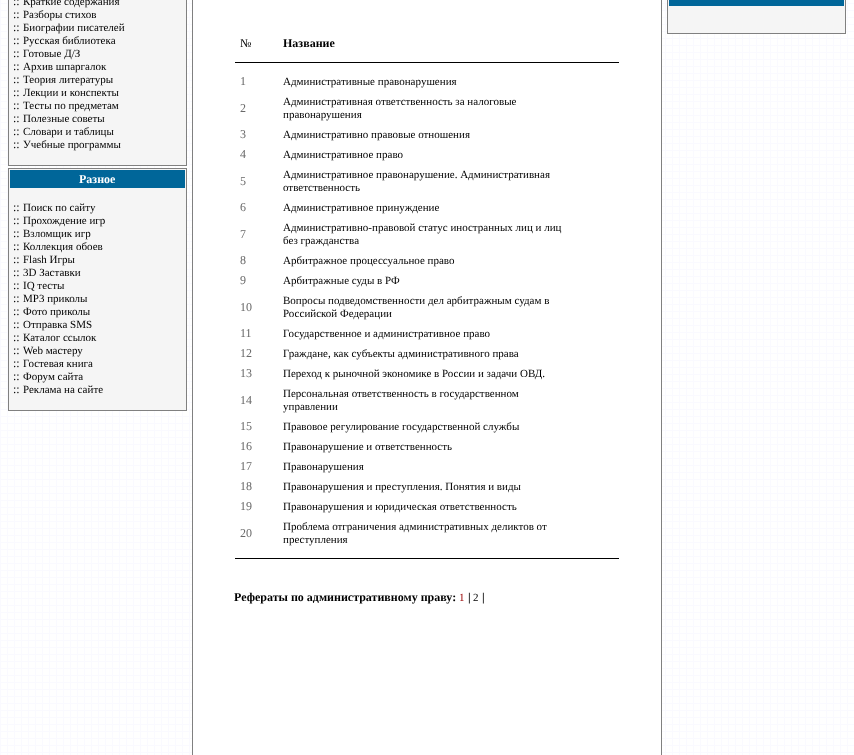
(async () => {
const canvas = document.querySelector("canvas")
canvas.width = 854
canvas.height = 755
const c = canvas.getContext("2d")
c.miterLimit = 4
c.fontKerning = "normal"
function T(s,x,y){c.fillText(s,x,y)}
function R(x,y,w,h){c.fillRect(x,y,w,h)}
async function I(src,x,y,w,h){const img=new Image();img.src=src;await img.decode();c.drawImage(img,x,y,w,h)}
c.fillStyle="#fff"
R(0,0,854,755)
await I("1.png",0,0,854,755)
c.fillStyle="#808080"
R(8,0,179,166)
c.fillStyle="#f5f5f5"
R(9,0,177,165)
c.font="12px Liberation Serif"
c.fillStyle="#000"
T("::",13,5)
c.font="11px Liberation Serif"
T("Краткие содержания",23,5)
c.font="12px Liberation Serif"
T("::",13,18)
c.font="11px Liberation Serif"
T("Разборы стихов",23,18)
c.font="12px Liberation Serif"
T("::",13,31)
c.font="11px Liberation Serif"
T("Биографии писателей",23,31)
c.font="12px Liberation Serif"
T("::",13,44)
c.font="11px Liberation Serif"
T("Русская библиотека",23,44)
c.font="12px Liberation Serif"
T("::",13,57)
c.font="11px Liberation Serif"
T("Готовые Д/З",23,57)
c.font="12px Liberation Serif"
T("::",13,70)
c.font="11px Liberation Serif"
T("Архив шпаргалок",23,70)
c.font="12px Liberation Serif"
T("::",13,83)
c.font="11px Liberation Serif"
T("Теория литературы",23,83)
c.font="12px Liberation Serif"
T("::",13,96)
c.font="11px Liberation Serif"
T("Лекции и конспекты",23,96)
c.font="12px Liberation Serif"
T("::",13,109)
c.font="11px Liberation Serif"
T("Тесты по предметам",23,109)
c.font="12px Liberation Serif"
T("::",13,122)
c.font="11px Liberation Serif"
T("Полезные советы",23,122)
c.font="12px Liberation Serif"
T("::",13,135)
c.font="11px Liberation Serif"
T("Словари и таблицы",23,135)
c.font="12px Liberation Serif"
T("::",13,148)
c.font="11px Liberation Serif"
T("Учебные программы",23,148)
c.fillStyle="#808080"
R(8,168,179,243)
c.fillStyle="#f5f5f5"
R(9,169,177,241)
c.fillStyle="#069"
R(10,170,175,18)
c.font="bold 12px Liberation Serif"
c.fillStyle="#fff"
T("Разное",79,183)
c.font="12px Liberation Serif"
c.fillStyle="#000"
T("::",13,211)
c.font="11px Liberation Serif"
T("Поиск по сайту",23,211)
c.font="12px Liberation Serif"
T("::",13,224)
c.font="11px Liberation Serif"
T("Прохождение игр",23,224)
c.font="12px Liberation Serif"
T("::",13,237)
c.font="11px Liberation Serif"
T("Взломщик игр",23,237)
c.font="12px Liberation Serif"
T("::",13,250)
c.font="11px Liberation Serif"
T("Коллекция обоев",23,250)
c.font="12px Liberation Serif"
T("::",13,263)
c.font="11px Liberation Serif"
T("Flash Игры",23,263)
c.font="12px Liberation Serif"
T("::",13,276)
c.font="11px Liberation Serif"
T("3D Заставки",23,276)
c.font="12px Liberation Serif"
T("::",13,289)
c.font="11px Liberation Serif"
T("IQ тесты",23,289)
c.font="12px Liberation Serif"
T("::",13,302)
c.font="11px Liberation Serif"
T("MP3 приколы",23,302)
c.font="12px Liberation Serif"
T("::",13,315)
c.font="11px Liberation Serif"
T("Фото приколы",23,315)
c.font="12px Liberation Serif"
T("::",13,328)
c.font="11px Liberation Serif"
T("Отправка SMS",23,328)
c.font="12px Liberation Serif"
T("::",13,341)
c.font="11px Liberation Serif"
T("Каталог ссылок",23,341)
c.font="12px Liberation Serif"
T("::",13,354)
c.font="11px Liberation Serif"
T("Web мастеру",23,354)
c.font="12px Liberation Serif"
T("::",13,367)
c.font="11px Liberation Serif"
T("Гостевая книга",23,367)
c.font="12px Liberation Serif"
T("::",13,380)
c.font="11px Liberation Serif"
T("Форум сайта",23,380)
c.font="12px Liberation Serif"
T("::",13,393)
c.font="11px Liberation Serif"
T("Реклама на сайте",23,393)
c.fillStyle="#808080"
R(667,0,179,34)
c.fillStyle="#f5f5f5"
R(668,0,177,33)
c.fillStyle="#069"
R(669,0,175,6)
c.fillStyle="#808080"
R(192,0,470,755)
c.fillStyle="#fff"
R(193,0,468,755)
c.font="12px Liberation Serif"
c.fillStyle="#000"
T("№",240,47)
c.font="bold 12px Liberation Serif"
T("Название",283,47)
R(235,62,384,1)
c.font="12px Liberation Serif"
c.fillStyle="#696969"
T("1",240,85)
c.font="11px Liberation Serif"
c.fillStyle="#000"
T("Администpативные пpавонаpушения",283,85)
c.font="12px Liberation Serif"
c.fillStyle="#696969"
T("2",240,112)
c.font="11px Liberation Serif"
c.fillStyle="#000"
T("Административная ответственность за налоговые",283,105)
T("правонарушения",283,118)
c.font="12px Liberation Serif"
c.fillStyle="#696969"
T("3",240,138)
c.font="11px Liberation Serif"
c.fillStyle="#000"
T("Административно правовые отношения",283,138)
c.font="12px Liberation Serif"
c.fillStyle="#696969"
T("4",240,158)
c.font="11px Liberation Serif"
c.fillStyle="#000"
T("Административное право",283,158)
c.font="12px Liberation Serif"
c.fillStyle="#696969"
T("5",240,185)
c.font="11px Liberation Serif"
c.fillStyle="#000"
T("Административное правонарушение. Административная",283,178)
T("ответственность",283,191)
c.font="12px Liberation Serif"
c.fillStyle="#696969"
T("6",240,211)
c.font="11px Liberation Serif"
c.fillStyle="#000"
T("Административное принуждение",283,211)
c.font="12px Liberation Serif"
c.fillStyle="#696969"
T("7",240,238)
c.font="11px Liberation Serif"
c.fillStyle="#000"
T("Административно-правовой статус иностранных лиц и лиц",283,231)
T("без гражданства",283,244)
c.font="12px Liberation Serif"
c.fillStyle="#696969"
T("8",240,264)
c.font="11px Liberation Serif"
c.fillStyle="#000"
T("Арбитражное процессуальное право",283,264)
c.font="12px Liberation Serif"
c.fillStyle="#696969"
T("9",240,284)
c.font="11px Liberation Serif"
c.fillStyle="#000"
T("Арбитражные суды в РФ",283,284)
c.font="12px Liberation Serif"
c.fillStyle="#696969"
T("10",240,311)
c.font="11px Liberation Serif"
c.fillStyle="#000"
T("Вопросы подведомственности дел арбитражным судам в",283,304)
T("Российской Федерации",283,317)
c.font="12px Liberation Serif"
c.fillStyle="#696969"
T("11",240,337)
c.font="11px Liberation Serif"
c.fillStyle="#000"
T("Государственное и административное право",283,337)
c.font="12px Liberation Serif"
c.fillStyle="#696969"
T("12",240,357)
c.font="11px Liberation Serif"
c.fillStyle="#000"
T("Граждане, как субъекты административного права",283,357)
c.font="12px Liberation Serif"
c.fillStyle="#696969"
T("13",240,377)
c.font="11px Liberation Serif"
c.fillStyle="#000"
T("Пеpеход к pыночной экономике в России и задачи ОВД.",283,377)
c.font="12px Liberation Serif"
c.fillStyle="#696969"
T("14",240,404)
c.font="11px Liberation Serif"
c.fillStyle="#000"
T("Персональная ответственность в государственном",283,397)
T("управлении",283,410)
c.font="12px Liberation Serif"
c.fillStyle="#696969"
T("15",240,430)
c.font="11px Liberation Serif"
c.fillStyle="#000"
T("Правовое регулирование государственной службы",283,430)
c.font="12px Liberation Serif"
c.fillStyle="#696969"
T("16",240,450)
c.font="11px Liberation Serif"
c.fillStyle="#000"
T("Правонарушение и ответственность",283,450)
c.font="12px Liberation Serif"
c.fillStyle="#696969"
T("17",240,470)
c.font="11px Liberation Serif"
c.fillStyle="#000"
T("Правонарушения",283,470)
c.font="12px Liberation Serif"
c.fillStyle="#696969"
T("18",240,490)
c.font="11px Liberation Serif"
c.fillStyle="#000"
T("Правонарушения и преступления. Понятия и виды",283,490)
c.font="12px Liberation Serif"
c.fillStyle="#696969"
T("19",240,510)
c.font="11px Liberation Serif"
c.fillStyle="#000"
T("Правонарушения и юридическая ответственность",283,510)
c.font="12px Liberation Serif"
c.fillStyle="#696969"
T("20",240,537)
c.font="11px Liberation Serif"
c.fillStyle="#000"
T("Проблема отграничения административных деликтов от",283,530)
T("преступления",283,543)
R(235,558,384,1)
c.font="bold 12px Liberation Serif"
T("Рефераты по административному праву:",234,601)
c.font="11px Liberation Serif"
c.fillStyle="#900"
T("1",459,601)
c.font="bold 12px Liberation Serif"
c.fillStyle="#000"
T("|",468,601)
c.font="11px Liberation Serif"
T("2",473,601)
c.font="bold 12px Liberation Serif"
T("|",482,601)
})()
